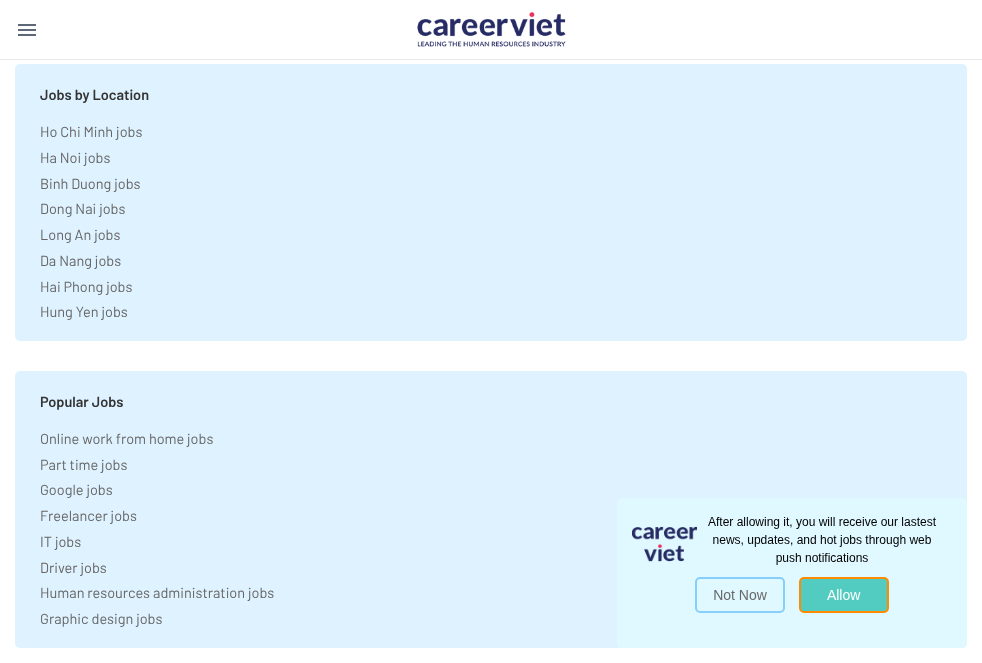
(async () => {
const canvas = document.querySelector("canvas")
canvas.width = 982
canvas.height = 663
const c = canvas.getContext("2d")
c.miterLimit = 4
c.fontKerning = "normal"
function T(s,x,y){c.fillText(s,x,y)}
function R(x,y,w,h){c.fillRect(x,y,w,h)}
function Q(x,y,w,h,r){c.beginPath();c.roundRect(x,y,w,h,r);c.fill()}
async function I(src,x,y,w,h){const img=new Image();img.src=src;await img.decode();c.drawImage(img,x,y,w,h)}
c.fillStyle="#fff"
R(0,0,982,663)
await I("1.png",18,24,18,12)
await I("2.png",417,12,149,35)
c.fillStyle="#e8e8e8"
R(0,59,982,1)
c.fillStyle="#dff2ff"
Q(15,64,952,277,5)
c.font="600 14.5px Barlow"
c.fillStyle="#333"
T("Jobs by Location",40,100)
c.font="14.5px Barlow"
c.fillStyle="#666"
T("Ho Chi Minh jobs",40,137)
T("Ha Noi jobs",40,163)
T("Binh Duong jobs",40,189)
T("Dong Nai jobs",40,214)
T("Long An jobs",40,240)
T("Da Nang jobs",40,266)
T("Hai Phong jobs",40,292)
T("Hung Yen jobs",40,317)
c.fillStyle="#dff2ff"
Q(15,371,952,277,5)
c.font="600 14.5px Barlow"
c.fillStyle="#333"
T("Popular Jobs",40,407)
c.font="14.5px Barlow"
c.fillStyle="#666"
T("Online work from home jobs",40,444)
T("Part time jobs",40,470)
T("Google jobs",40,495)
T("Freelancer jobs",40,521)
T("IT jobs",40,547)
T("Driver jobs",40,573)
T("Human resources administration jobs",40,598)
T("Graphic design jobs",40,624)
c.fillStyle="#e0f8ff"
Q(617,498,350,150,5)
await I("3.png",632,517,304,96)
})()
